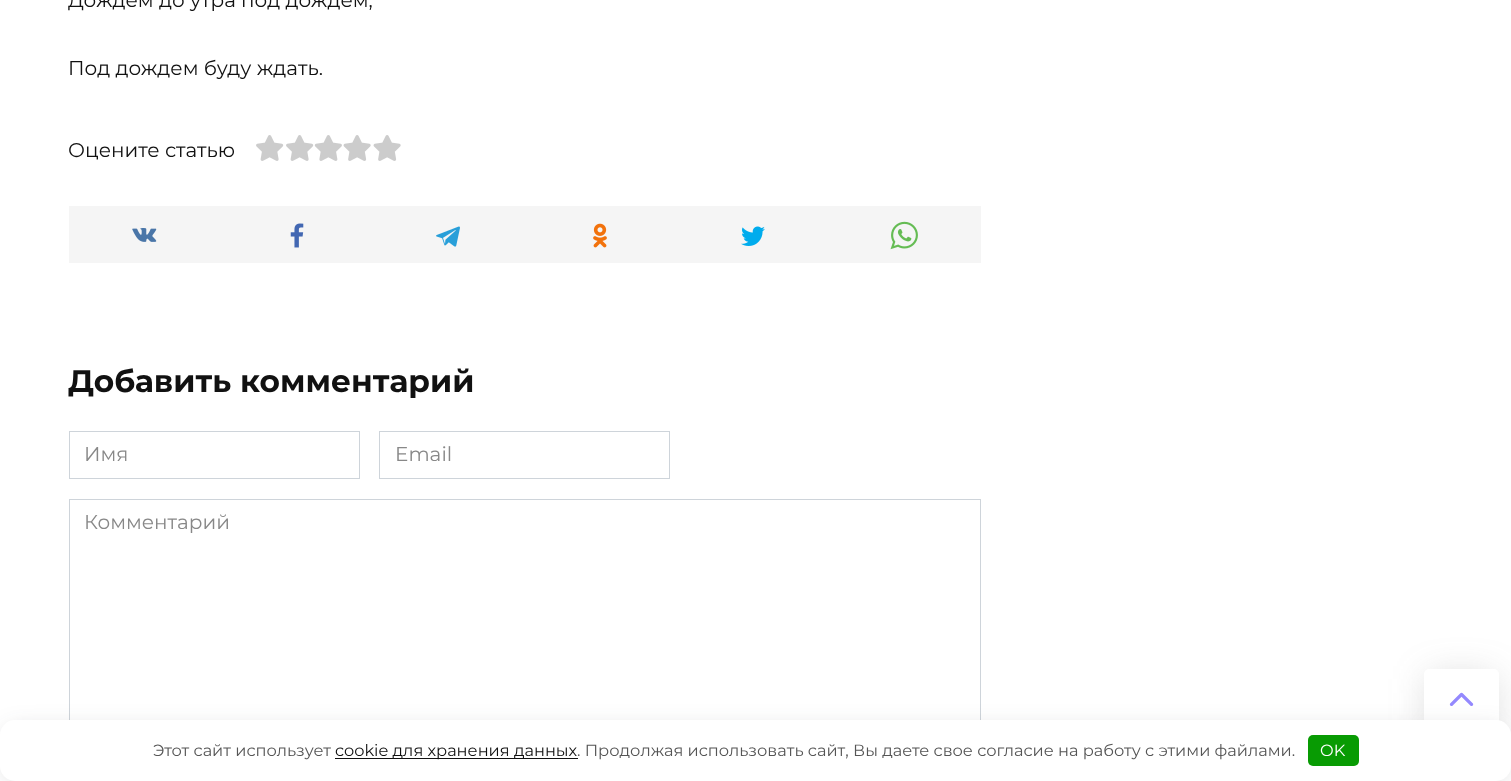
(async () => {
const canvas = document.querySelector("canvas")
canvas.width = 1511
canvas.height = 781
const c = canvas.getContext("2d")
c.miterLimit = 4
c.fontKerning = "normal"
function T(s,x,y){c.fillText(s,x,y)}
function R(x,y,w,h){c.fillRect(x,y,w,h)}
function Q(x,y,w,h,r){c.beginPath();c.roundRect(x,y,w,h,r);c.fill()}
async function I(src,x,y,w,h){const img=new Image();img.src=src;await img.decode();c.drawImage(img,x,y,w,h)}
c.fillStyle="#fff"
R(0,0,1511,781)
c.font="20px Montserrat"
c.fillStyle="#111"
T("Дождем до утра под дождем,",68,7)
T("Под дождем буду ждать.",68,75)
T("Оцените статью",68,157)
await I("1.png",256,135,28,26)
await I("1.png",286,135,28,26)
await I("2.png",314,135,28,26)
await I("3.png",343,135,28,26)
await I("3.png",373,135,28,26)
c.fillStyle="#f5f5f5"
R(69,206,912,57)
await I("4.png",132,228,25,14)
await I("5.png",290,223,14,25)
await I("6.png",436,226,24,21)
await I("7.png",593,223,14,25)
await I("8.png",741,226,24,20)
await I("9.png",890,221,28,29)
c.font="bold 31.25px Montserrat"
c.fillStyle="#111"
T("Добавить комментарий",68,392)
c.strokeStyle="#ced4da"
c.strokeRect(69.5,431.5,290,47)
c.font="20px Montserrat"
c.fillStyle="#888"
T("Имя",84,461)
c.strokeRect(379.5,431.5,290,47)
T("Email",395,461)
c.strokeRect(69.5,499.5,911,256)
T("Комментарий",84,529)
c.fillStyle="#6666664d"
c.filter="blur(19px)"
c.beginPath()
c.rect(1430,679,63,50)
c.fill()
c.filter="none"
c.fillStyle="#fff"
Q(1424,669,75,62,5)
c.font="40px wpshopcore"
c.fillStyle="#9489fe"
T("︿",1441,716)
c.fillStyle="#292c3833"
c.filter="blur(12.5px)"
c.beginPath()
c.roundRect(6,730,1499,49,9)
c.fill()
c.filter="none"
c.fillStyle="#fff"
Q(0,720,1511,61,15)
c.font="16.25px Montserrat"
c.fillStyle="#555"
T("Этот сайт использует",153,756)
c.fillStyle="#111"
R(335,758,243,1)
T("cookie для хранения данных",335,756)
c.fillStyle="#555"
T(". Продолжая использовать сайт, Вы даете свое согласие на работу с этими файлами.",577,756)
c.fillStyle="#089b03"
Q(1308,735,51,31,5)
c.fillStyle="#fff"
T("OK",1320,756)
})()
